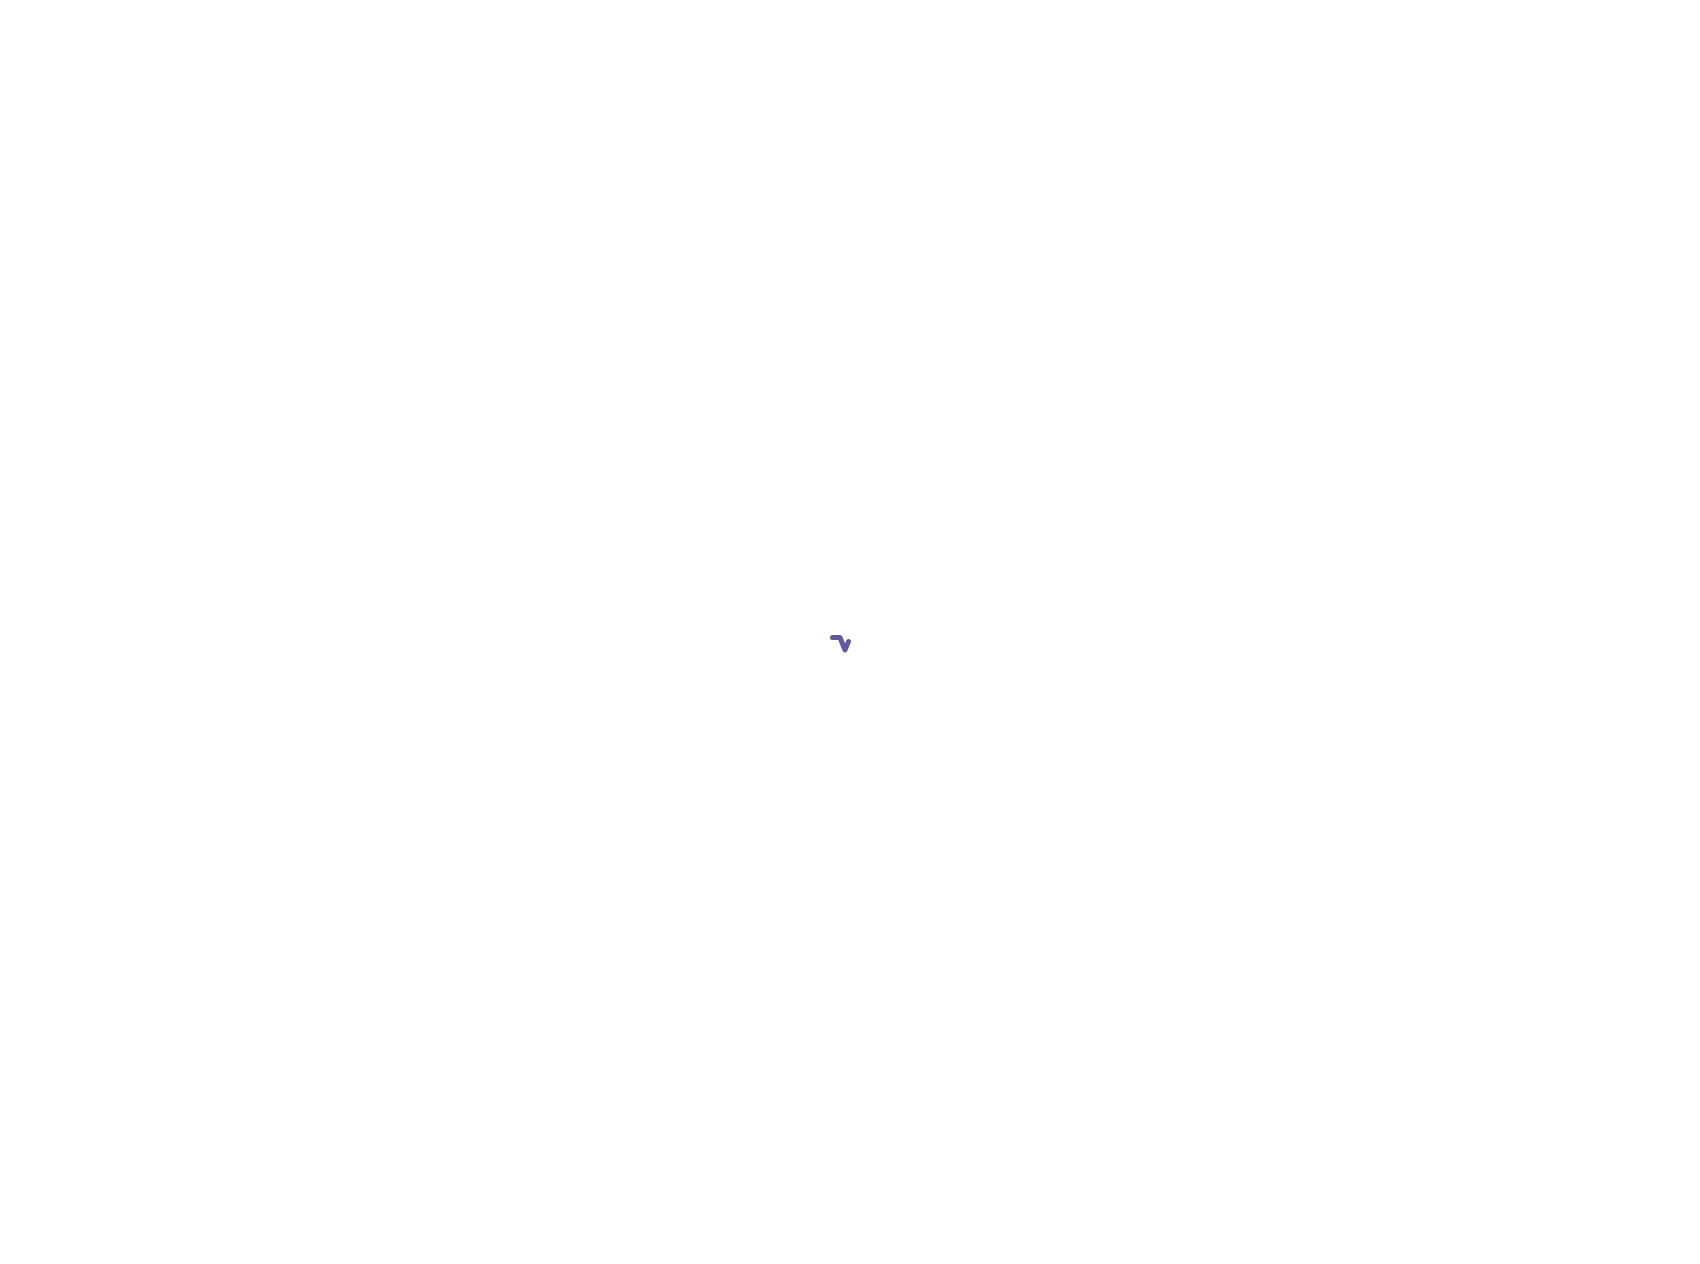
(async () => {
const canvas = document.querySelector("canvas")
canvas.width = 1700
canvas.height = 1264
const c = canvas.getContext("2d")
c.miterLimit = 4
c.fontKerning = "normal"
function R(x,y,w,h){c.fillRect(x,y,w,h)}
let path
c.fillStyle="#fff"
R(0,0,1700,1264)
path = new Path2D("M832.5 637.5h7.5l5 12.5l3.5-8.5")
c.strokeStyle="#63599e"
c.lineWidth=5
c.lineCap="round"
c.lineJoin="round"
c.stroke(path)
})()
